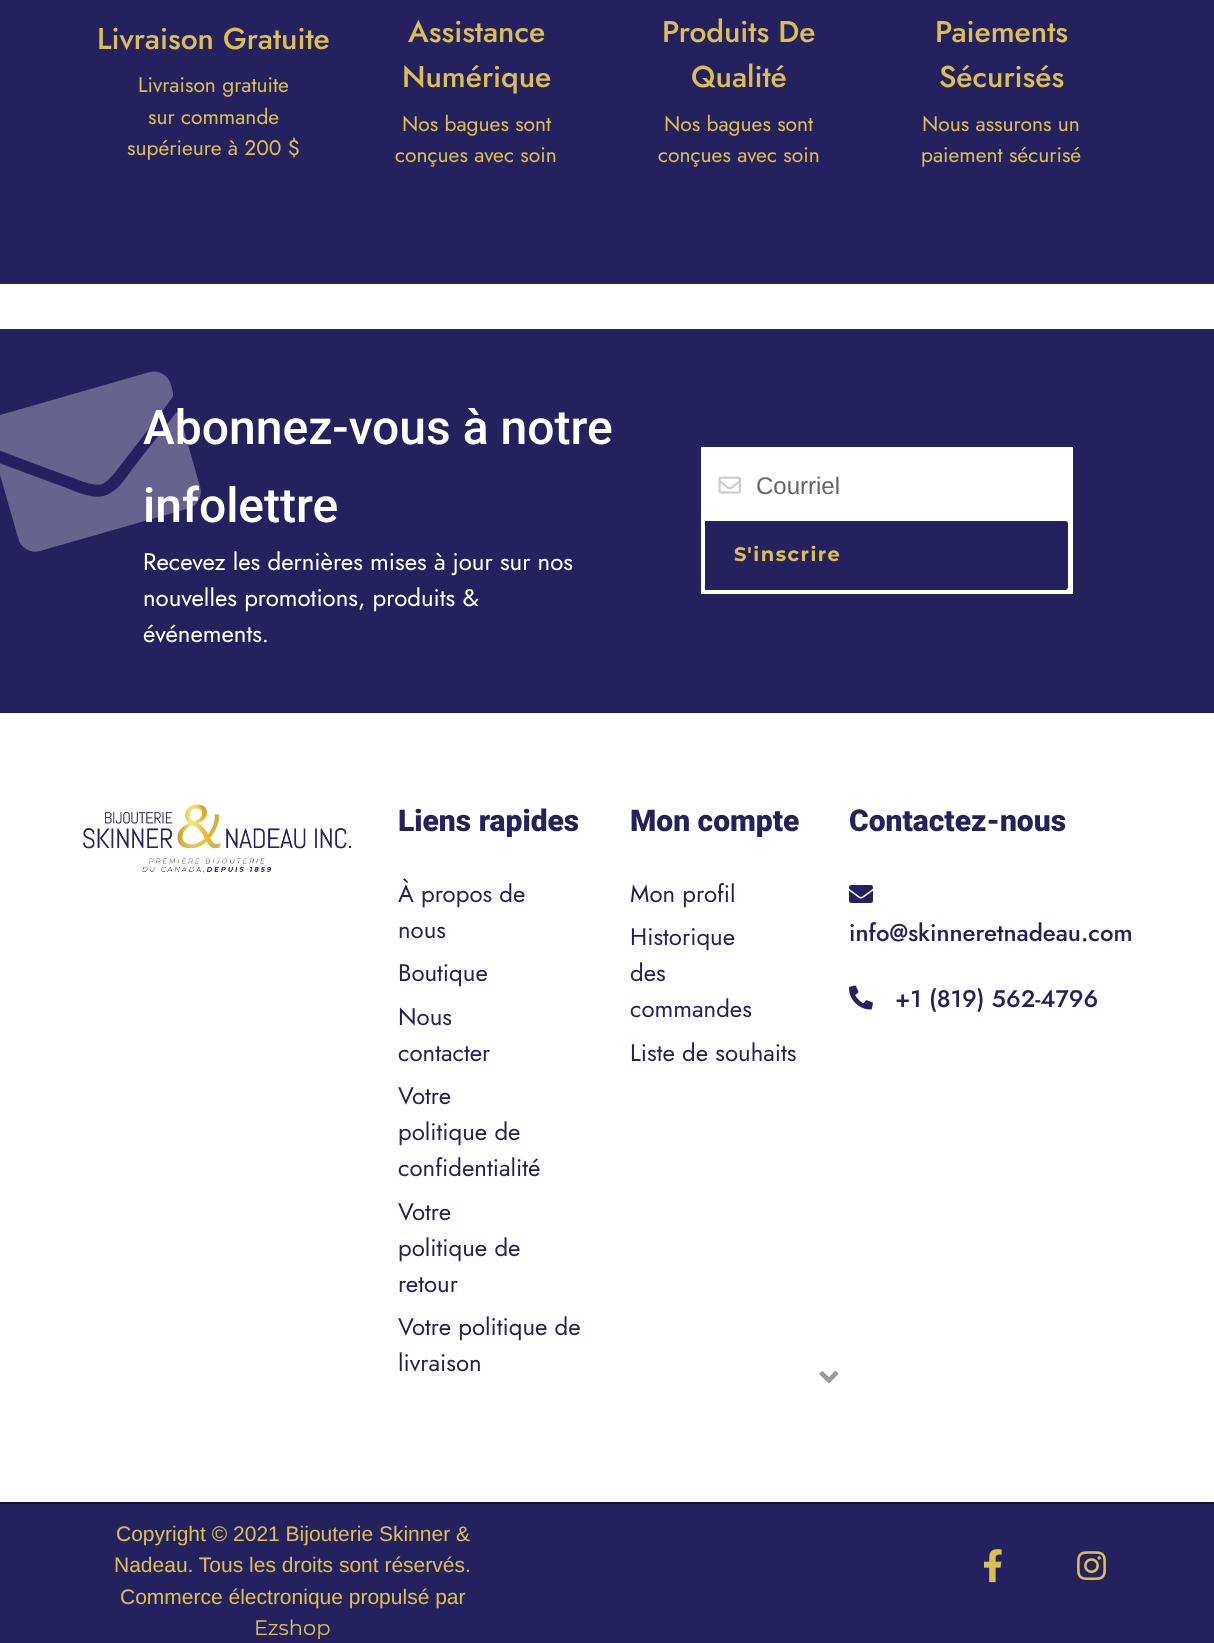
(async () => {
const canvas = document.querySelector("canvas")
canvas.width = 1214
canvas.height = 1643
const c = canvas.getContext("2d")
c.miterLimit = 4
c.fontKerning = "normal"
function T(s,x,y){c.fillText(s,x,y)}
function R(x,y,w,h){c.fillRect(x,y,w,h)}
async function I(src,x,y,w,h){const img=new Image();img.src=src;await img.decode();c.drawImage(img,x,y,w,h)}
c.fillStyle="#fff"
R(0,0,1214,1643)
c.fillStyle="#25215f"
R(0,0,1214,284)
c.font="500 30px Jost"
c.fillStyle="#dac053"
T("Livraison Gratuite",97,49)
c.font="21px Jost"
T("Livraison gratuite",138,92)
T("sur commande",148,124)
T("supérieure à 200 $",127,155)
c.font="500 30px Jost"
T("Assistance",408,42)
T("Numérique",402,87)
c.font="21px Jost"
T("Nos bagues sont",402,131)
T("conçues avec soin",395,162)
c.font="500 30px Jost"
T("Produits De",662,42)
T("Qualité",691,87)
c.font="21px Jost"
T("Nos bagues sont",664,131)
T("conçues avec soin",658,162)
c.font="500 30px Jost"
T("Paiements",935,42)
T("Sécurisés",939,87)
c.font="21px Jost"
T("Nous assurons un",922,131)
T("paiement sécurisé",921,162)
c.fillStyle="#25215f"
R(0,329,1214,384)
c.font="500 48px Roboto"
c.fillStyle="#fff"
T("Abonnez-vous à notre",143,444)
T("infolettre",143,522)
c.font="24px Jost"
T("Recevez les dernières mises à jour sur nos",143,570)
await I("1.png",0,371,201,181)
T("nouvelles promotions, produits &",143,606)
T("événements.",143,642)
R(701,447,372,147)
await I("2.png",718,476,23,18)
c.font="24px Liberation Sans"
c.fillStyle="#666"
T("Courriel",756,494)
c.fillStyle="#25215f"
c.beginPath()
c.roundRect(705,521,363,69,[0,3,3,0])
c.fill()
c.letterSpacing="1.5px"
c.font="bold 19.5px Montserrat"
c.fillStyle="#dac053"
T("S'inscrire",734,561)
await I("3.png",819,1371,20,13)
await I("4.png",83,804,269,69)
c.letterSpacing="0px"
c.font="900 30px Roboto"
c.fillStyle="#25215f"
T("Liens rapides",398,831)
c.font="24px Jost"
T("À propos de",398,902)
T("nous",398,938)
T("Boutique",398,981)
T("Nous",398,1025)
T("contacter",398,1061)
T("Votre",398,1104)
T("politique de",398,1140)
T("confidentialité",398,1176)
T("Votre",398,1220)
T("politique de",398,1256)
T("retour",398,1292)
T("Votre politique de",398,1335)
T("livraison",398,1371)
c.font="900 30px Roboto"
T("Mon compte",630,831)
c.font="24px Jost"
T("Mon profil",630,902)
T("Historique",630,945)
T("des",630,981)
T("commandes",630,1017)
T("Liste de souhaits",630,1061)
c.font="900 30px Roboto"
T("Contactez-nous",849,831)
await I("5.png",849,885,24,18)
c.font="500 24px Jost"
T("info@skinneretnadeau.com",849,941)
await I("6.png",849,985,24,25)
T("+1 (819) 562-4796",895,1007)
c.fillStyle="#161439"
R(0,1502,1214,2)
c.fillStyle="#25215f"
R(0,1504,1214,139)
c.font="21px Liberation Sans"
c.fillStyle="#dac053"
T("Copyright © 2021 Bijouterie Skinner &",116,1541)
T("Nadeau. Tous les droits sont réservés.",114,1572)
T("Commerce électronique propulsé par",120,1604)
c.font="21px Montserrat"
T("Ezshop",254,1635)
await I("7.png",984,1549,18,34)
await I("8.png",1077,1551,29,30)
})()
